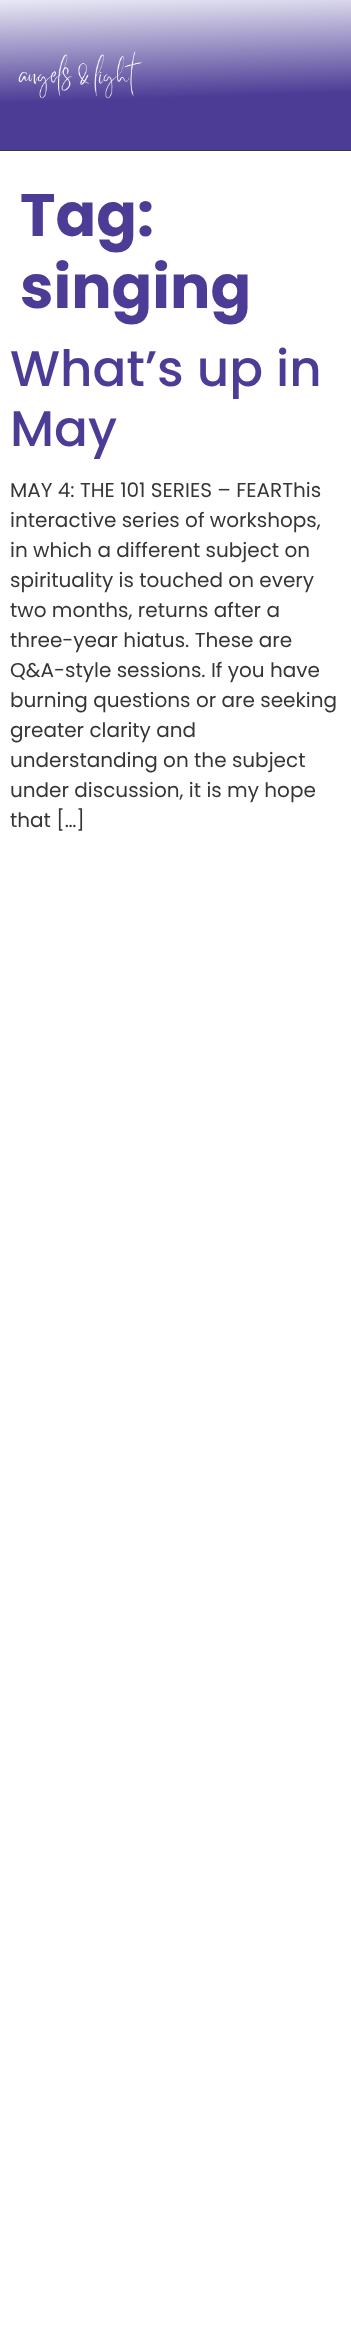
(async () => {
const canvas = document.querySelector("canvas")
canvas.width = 351
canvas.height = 2344
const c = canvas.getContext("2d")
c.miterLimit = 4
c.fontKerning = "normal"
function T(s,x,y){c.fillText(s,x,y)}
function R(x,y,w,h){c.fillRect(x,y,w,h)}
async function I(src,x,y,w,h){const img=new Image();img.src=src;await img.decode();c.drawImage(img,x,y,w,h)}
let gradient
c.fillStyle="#fff"
R(0,0,351,2344)
gradient = c.createLinearGradient(178,156,173,-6)
gradient.addColorStop(.36,"#4d3c96")
gradient.addColorStop(1,"#eaeaf5")
c.fillStyle = gradient
R(0,0,351,150)
c.fillStyle="#363636"
R(0,150,351,1)
await I("1.png",18,51,124,48)
c.font="bold 60px Poppins"
c.fillStyle="#4d3c96"
T("Tag:",20,236)
T("singing",20,308)
c.font="500 50px Poppins"
T("What’s up in",10,386)
T("May",10,446)
c.font="20px Poppins"
c.fillStyle="#363636"
T("MAY 4: THE 101 SERIES – FEARThis",10,497)
T("interactive series of workshops,",10,527)
T("in which a different subject on",10,557)
T("spirituality is touched on every",10,587)
T("two months, returns after a",10,617)
T("three-year hiatus. These are",10,647)
T("Q&A-style sessions. If you have",10,677)
T("burning questions or are seeking",10,707)
T("greater clarity and",10,737)
T("understanding on the subject",10,767)
T("under discussion, it is my hope",10,797)
T("that […]",10,827)
})()
